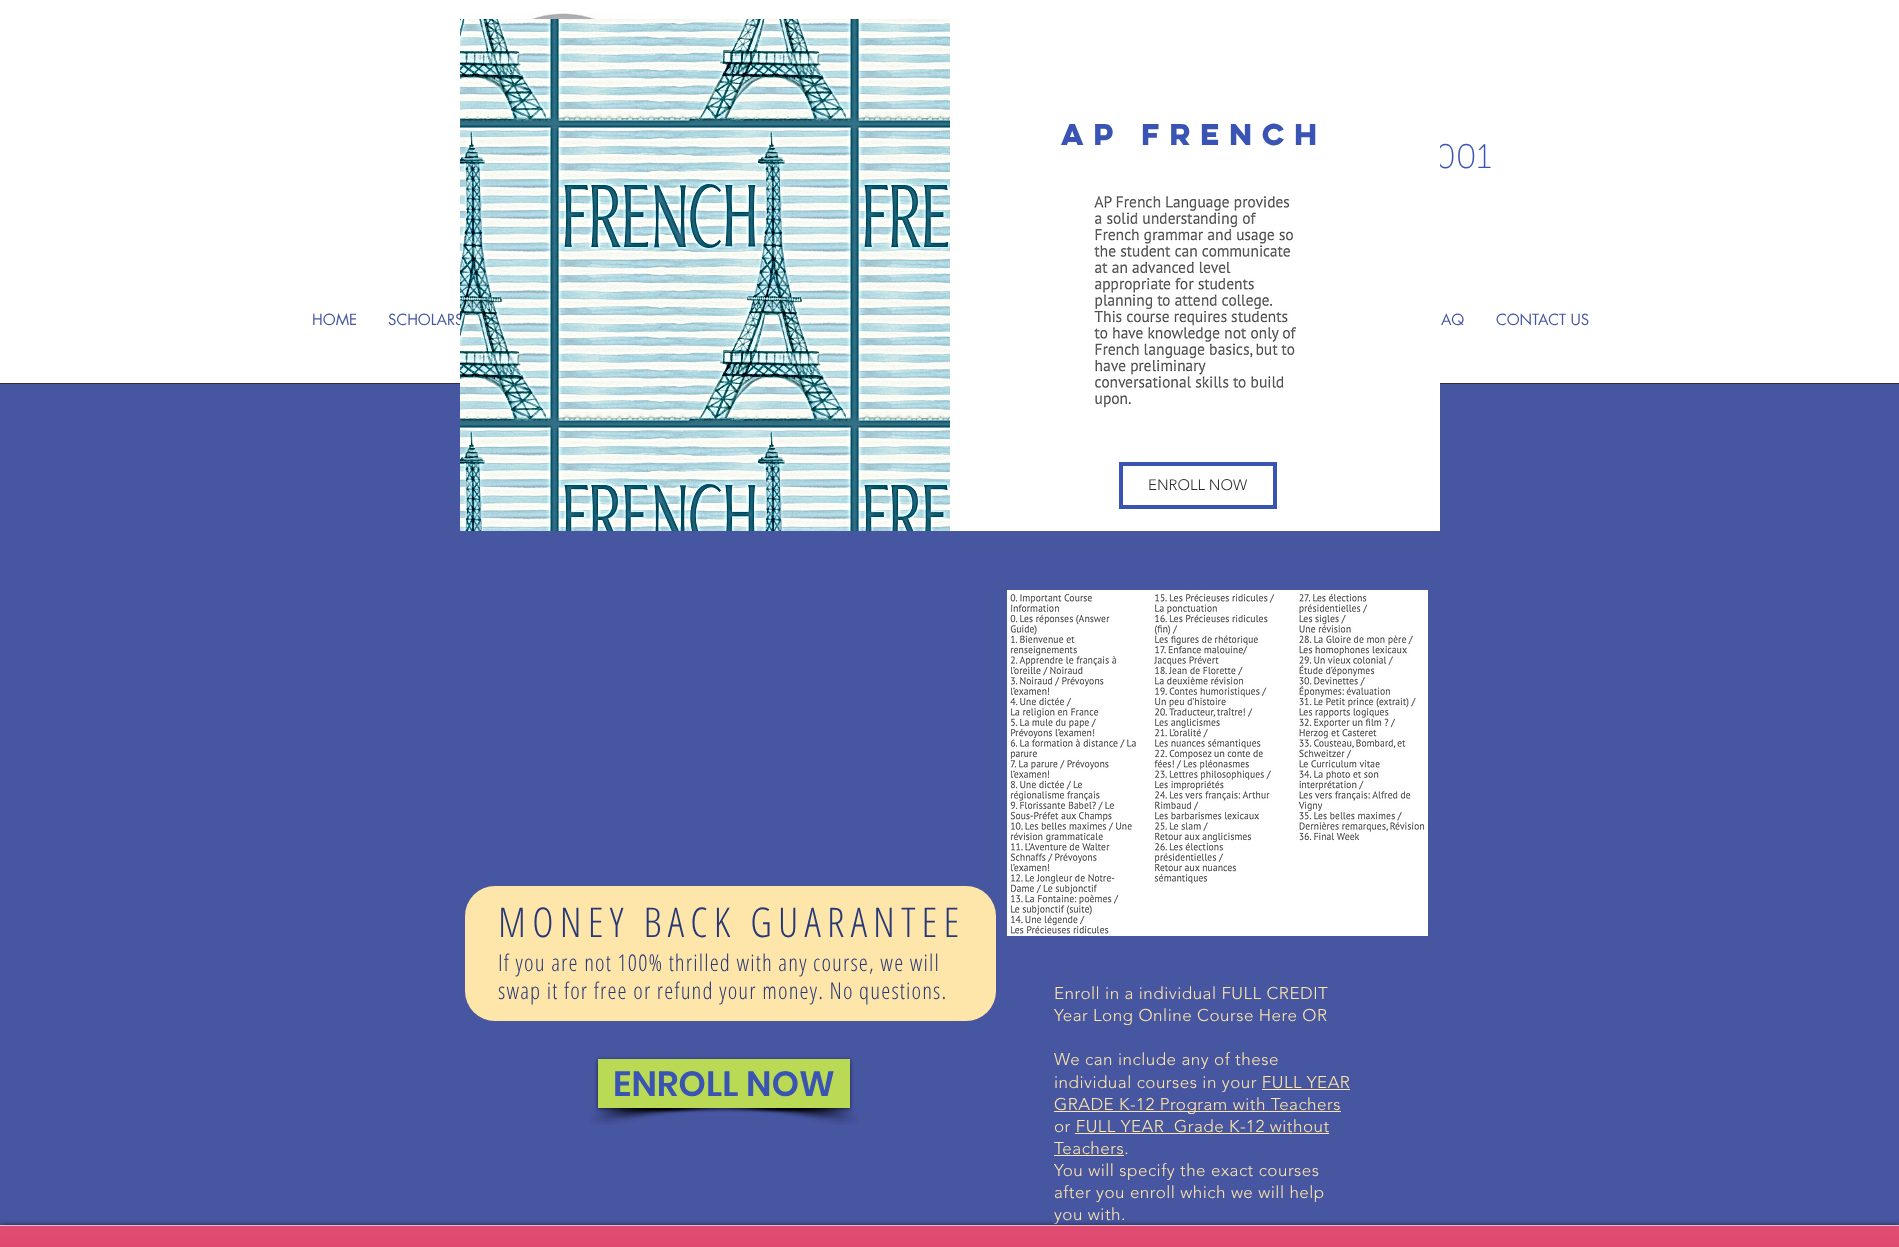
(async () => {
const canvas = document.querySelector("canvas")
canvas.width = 1899
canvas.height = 1247
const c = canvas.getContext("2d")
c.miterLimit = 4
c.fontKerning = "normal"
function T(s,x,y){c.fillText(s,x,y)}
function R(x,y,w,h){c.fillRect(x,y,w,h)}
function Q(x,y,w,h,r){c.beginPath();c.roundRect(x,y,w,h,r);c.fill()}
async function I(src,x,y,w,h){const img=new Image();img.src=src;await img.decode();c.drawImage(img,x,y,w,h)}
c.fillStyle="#4756a1"
R(0,0,1899,1247)
c.fillStyle="#fff"
R(0,0,1899,383)
c.fillStyle="#303030"
R(0,383,1899,1)
c.font="15px futura"
c.fillStyle="#4756a1"
T("SCHOLARS",388,325)
await I("1.png",460,19,490,512)
c.font="100 34px 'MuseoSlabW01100'"
c.fillStyle="#3a54b4"
T("001",1435,168)
c.fillStyle="#fff"
R(950,145,490,386)
c.letterSpacing="4px"
c.font="bold 27px 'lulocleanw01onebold'"
c.fillStyle="#3a54b4"
T("AP French",1061,145)
await I("2.png",1094,196,202,212)
c.strokeStyle="#3a54b4"
c.lineWidth=4
c.strokeRect(1121,464,154,43)
c.letterSpacing="0px"
c.font="300 15px 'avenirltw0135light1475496'"
c.fillStyle="#2f2e2e"
T("ENROLL NOW",1148,490)
await I("3.png",1007,590,421,346)
c.fillStyle="#fee6aa"
Q(465,886,531,135,30)
c.letterSpacing="6.2px"
c.font="300 41px Open Sans Condensed"
c.fillStyle="#273878"
T("MONEY BACK GUARANTEE",498,937)
c.letterSpacing="1.15px"
c.font="300 23px Open Sans Condensed"
T("If you are not 100% thrilled with any course, we will",498,971)
T("swap it for free or refund your money. No questions.",498,999)
await I("4.png",590,1108,148,17)
await I("5.png",713,1108,145,17)
c.fillStyle="#00000099"
c.filter="blur(2px)"
c.beginPath()
c.rect(598,1060,252,49)
c.fill()
c.filter="none"
c.fillStyle="#bada55"
R(598,1059,252,49)
c.letterSpacing="0px"
c.font="600 35px Poppins"
c.fillStyle="#3a54b4"
T("ENROLL NOW",613,1096)
c.letterSpacing="0.5px"
c.font="300 17px 'avenirltw0135light1475496'"
c.fillStyle="#fee6aa"
T("Enroll in a individual FULL CREDIT",1054,999)
T("Year Long Online Course Here OR",1054,1021)
T("We can include any of these",1054,1065)
T("individual courses in your FULL YEAR",1054,1088)
R(1262,1089,88,1)
R(1054,1111,287,1)
T("GRADE K-12 Program with Teachers",1054,1110)
T("or FULL YEAR  Grade K-12 without",1054,1132)
R(1075,1133,254,1)
T("Teachers.",1054,1154)
R(1054,1155,70,1)
T("You will specify the exact courses",1054,1176)
T("after you enroll which we will help",1054,1198)
T("you with.",1054,1220)
await I("6.png",467,12,192,7)
c.letterSpacing="0px"
c.font="15px futura"
c.fillStyle="#4756a1"
T("HOME",312,325)
T("AQ",1441,325)
T("CONTACT US",1496,325)
c.fillStyle="#00000099"
c.filter="blur(2.5px)"
c.beginPath()
c.rect(0,1225,1899,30)
c.fill()
c.filter="none"
c.fillStyle="#d61043"
R(0,1226,1899,21)
await I("7.png",0,1226,1899,21)
c.fillStyle="#f3b8c7"
R(0,1225,1899,1)
})()
